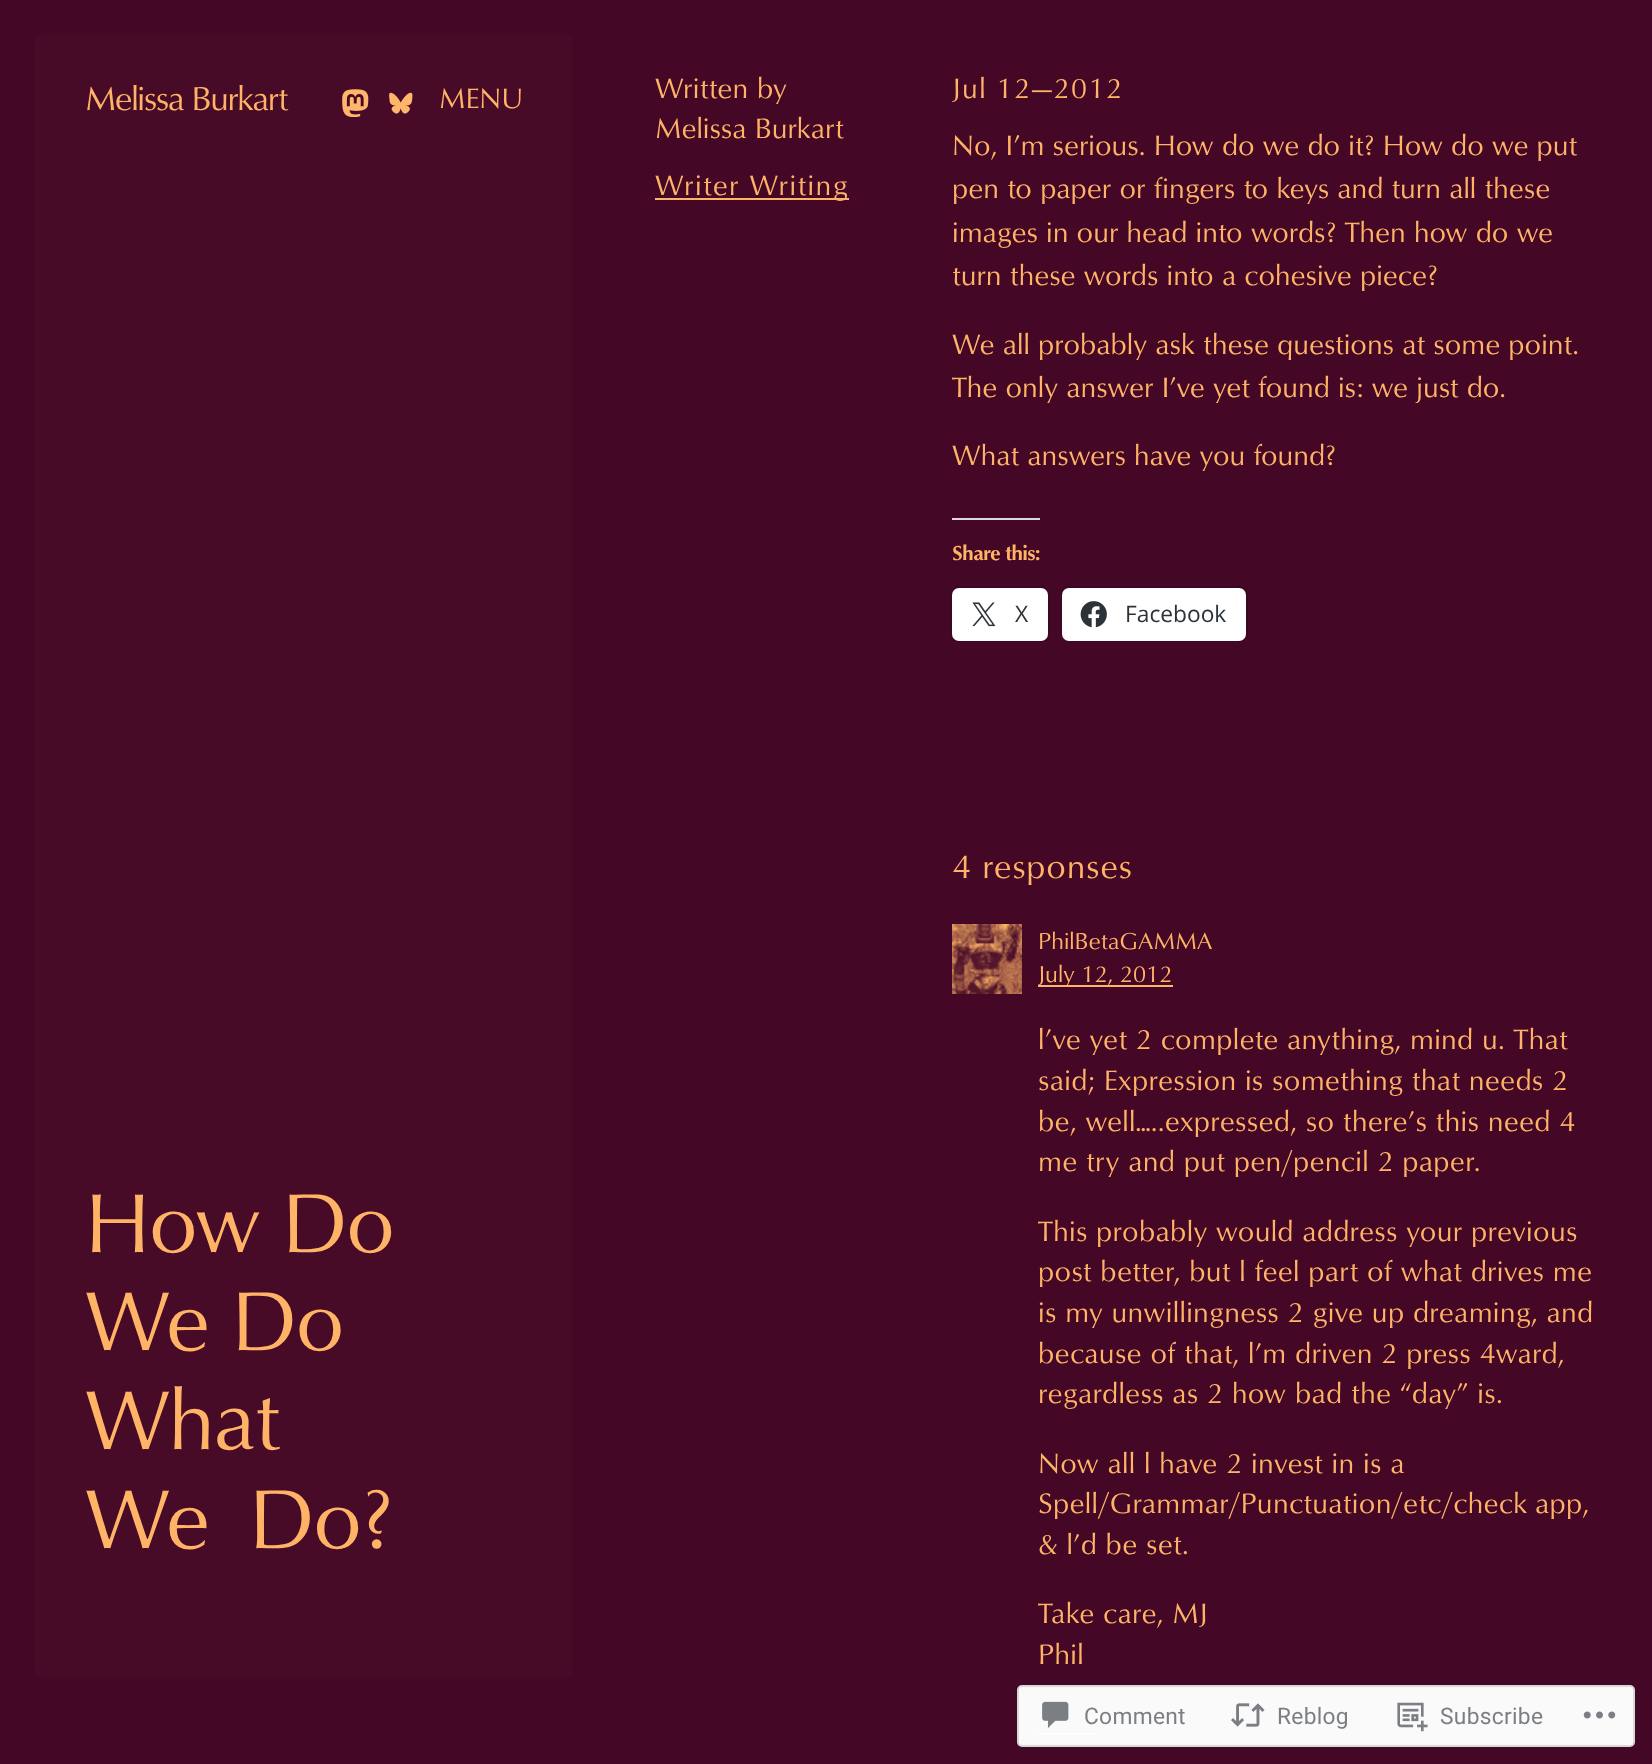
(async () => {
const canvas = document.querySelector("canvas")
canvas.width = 1652
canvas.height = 1764
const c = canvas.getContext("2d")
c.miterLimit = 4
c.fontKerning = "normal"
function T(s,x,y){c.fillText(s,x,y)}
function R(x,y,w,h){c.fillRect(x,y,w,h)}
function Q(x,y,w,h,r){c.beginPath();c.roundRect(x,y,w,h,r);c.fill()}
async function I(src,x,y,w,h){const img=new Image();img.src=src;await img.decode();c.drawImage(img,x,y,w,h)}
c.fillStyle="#440826"
R(0,0,1652,1764)
c.fillStyle="#480b27"
R(35,35,537,1642)
c.letterSpacing="-1.4px"
c.font="500 34.25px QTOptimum"
c.fillStyle="#ffb366"
T("Melissa Burkart",85,110)
await I("1.png",342,89,27,28)
await I("2.png",389,92,24,22)
c.letterSpacing="0px"
c.font="500 29px QTOptimum"
T("MENU",439,108)
c.letterSpacing="-1.4px"
c.font="500 86px QTOptimum"
T("How Do",85,1252)
T("We Do",85,1350)
T("What",85,1449)
T("We",85,1548)
T("Do?",249,1548)
c.letterSpacing="0.3px"
c.font="500 29px QTOptimum"
T("Written by",655,98)
c.letterSpacing="0px"
T("Melissa Burkart",655,138)
R(655,198,194,2)
c.letterSpacing="1.4px"
T("Writer Writing",655,195)
T("Jul 12—2012",952,98)
c.letterSpacing="0px"
T("No, I’m serious. How do we do it? How do we put",952,155)
T("pen to paper or fingers to keys and turn all these",952,198)
T("images in our head into words? Then how do we",952,242)
T("turn these words into a cohesive piece?",952,285)
T("We all probably ask these questions at some point.",952,354)
T("The only answer I’ve yet found is: we just do.",952,397)
T("What answers have you found?",952,465)
c.fillStyle="#dcdcde"
R(952,518,88,2)
c.letterSpacing="-0.75px"
c.font="bold 21px QTOptimum"
c.fillStyle="#ffb366"
T("Share this:",952,560)
c.beginPath()
c.roundRect(951,587,98,54,8)
c.strokeStyle="#3c0721"
c.lineWidth=2
c.stroke()
c.fillStyle="#fff"
Q(952,588,96,53,7)
await I("3.png",972,602,24,25)
c.letterSpacing="0px"
c.font="22.75px Open Sans"
c.fillStyle="#2c3338"
T("X",1015,622)
c.beginPath()
c.roundRect(1062,587,185,54,8)
c.stroke()
c.fillStyle="#fff"
Q(1062,588,184,53,7)
await I("4.png",1080,601,27,27)
c.fillStyle="#2c3338"
T("Facebook",1125,622)
c.letterSpacing="0.75px"
c.font="500 34.25px QTOptimum"
c.fillStyle="#ffb366"
T("4 responses",952,878)
await I("5.png",952,924,70,70)
c.letterSpacing="0px"
c.font="500 23.75px QTOptimum"
T("PhilBetaGAMMA",1038,949)
R(1038,985,135,2)
T("July 12, 2012",1038,982)
c.letterSpacing="0.3px"
c.font="500 29px QTOptimum"
T("l’ve yet 2 complete anything, mind u. That",1038,1049)
T("said; Expression is something that needs 2",1038,1090)
T("be, well…..expressed, so there’s this need 4",1038,1131)
T("me try and put pen/pencil 2 paper.",1038,1171)
T("This probably would address your previous",1038,1241)
T("post better, but l feel part of what drives me",1038,1281)
T("is my unwillingness 2 give up dreaming, and",1038,1322)
T("because of that, l’m driven 2 press 4ward,",1038,1363)
T("regardless as 2 how bad the “day” is.",1038,1403)
T("Now all l have 2 invest in is a",1038,1473)
c.wordSpacing="-1px"
T("Spell/Grammar/Punctuation/etc/check app,",1038,1513)
c.wordSpacing="0px"
T("& l’d be set.",1038,1554)
T("Take care, MJ",1038,1623)
T("Phil",1038,1664)
R(1038,1733,58,2)
c.fillStyle="#fffffffa"
c.beginPath()
c.roundRect(1018,1686,616,60,4)
c.fill()
c.strokeStyle="#d9d8da"
c.stroke()
await I("6.png",1042,1701,27,27)
c.font="22.75px Roboto"
c.fillStyle="#7b7f84"
T("Comment",1084,1724)
await I("7.png",1231,1703,34,24)
T("Reblog",1277,1724)
await I("8.png",1397,1702,31,30)
T("Subscribe",1440,1724)
await I("9.png",1583,1711,33,8)
})()
